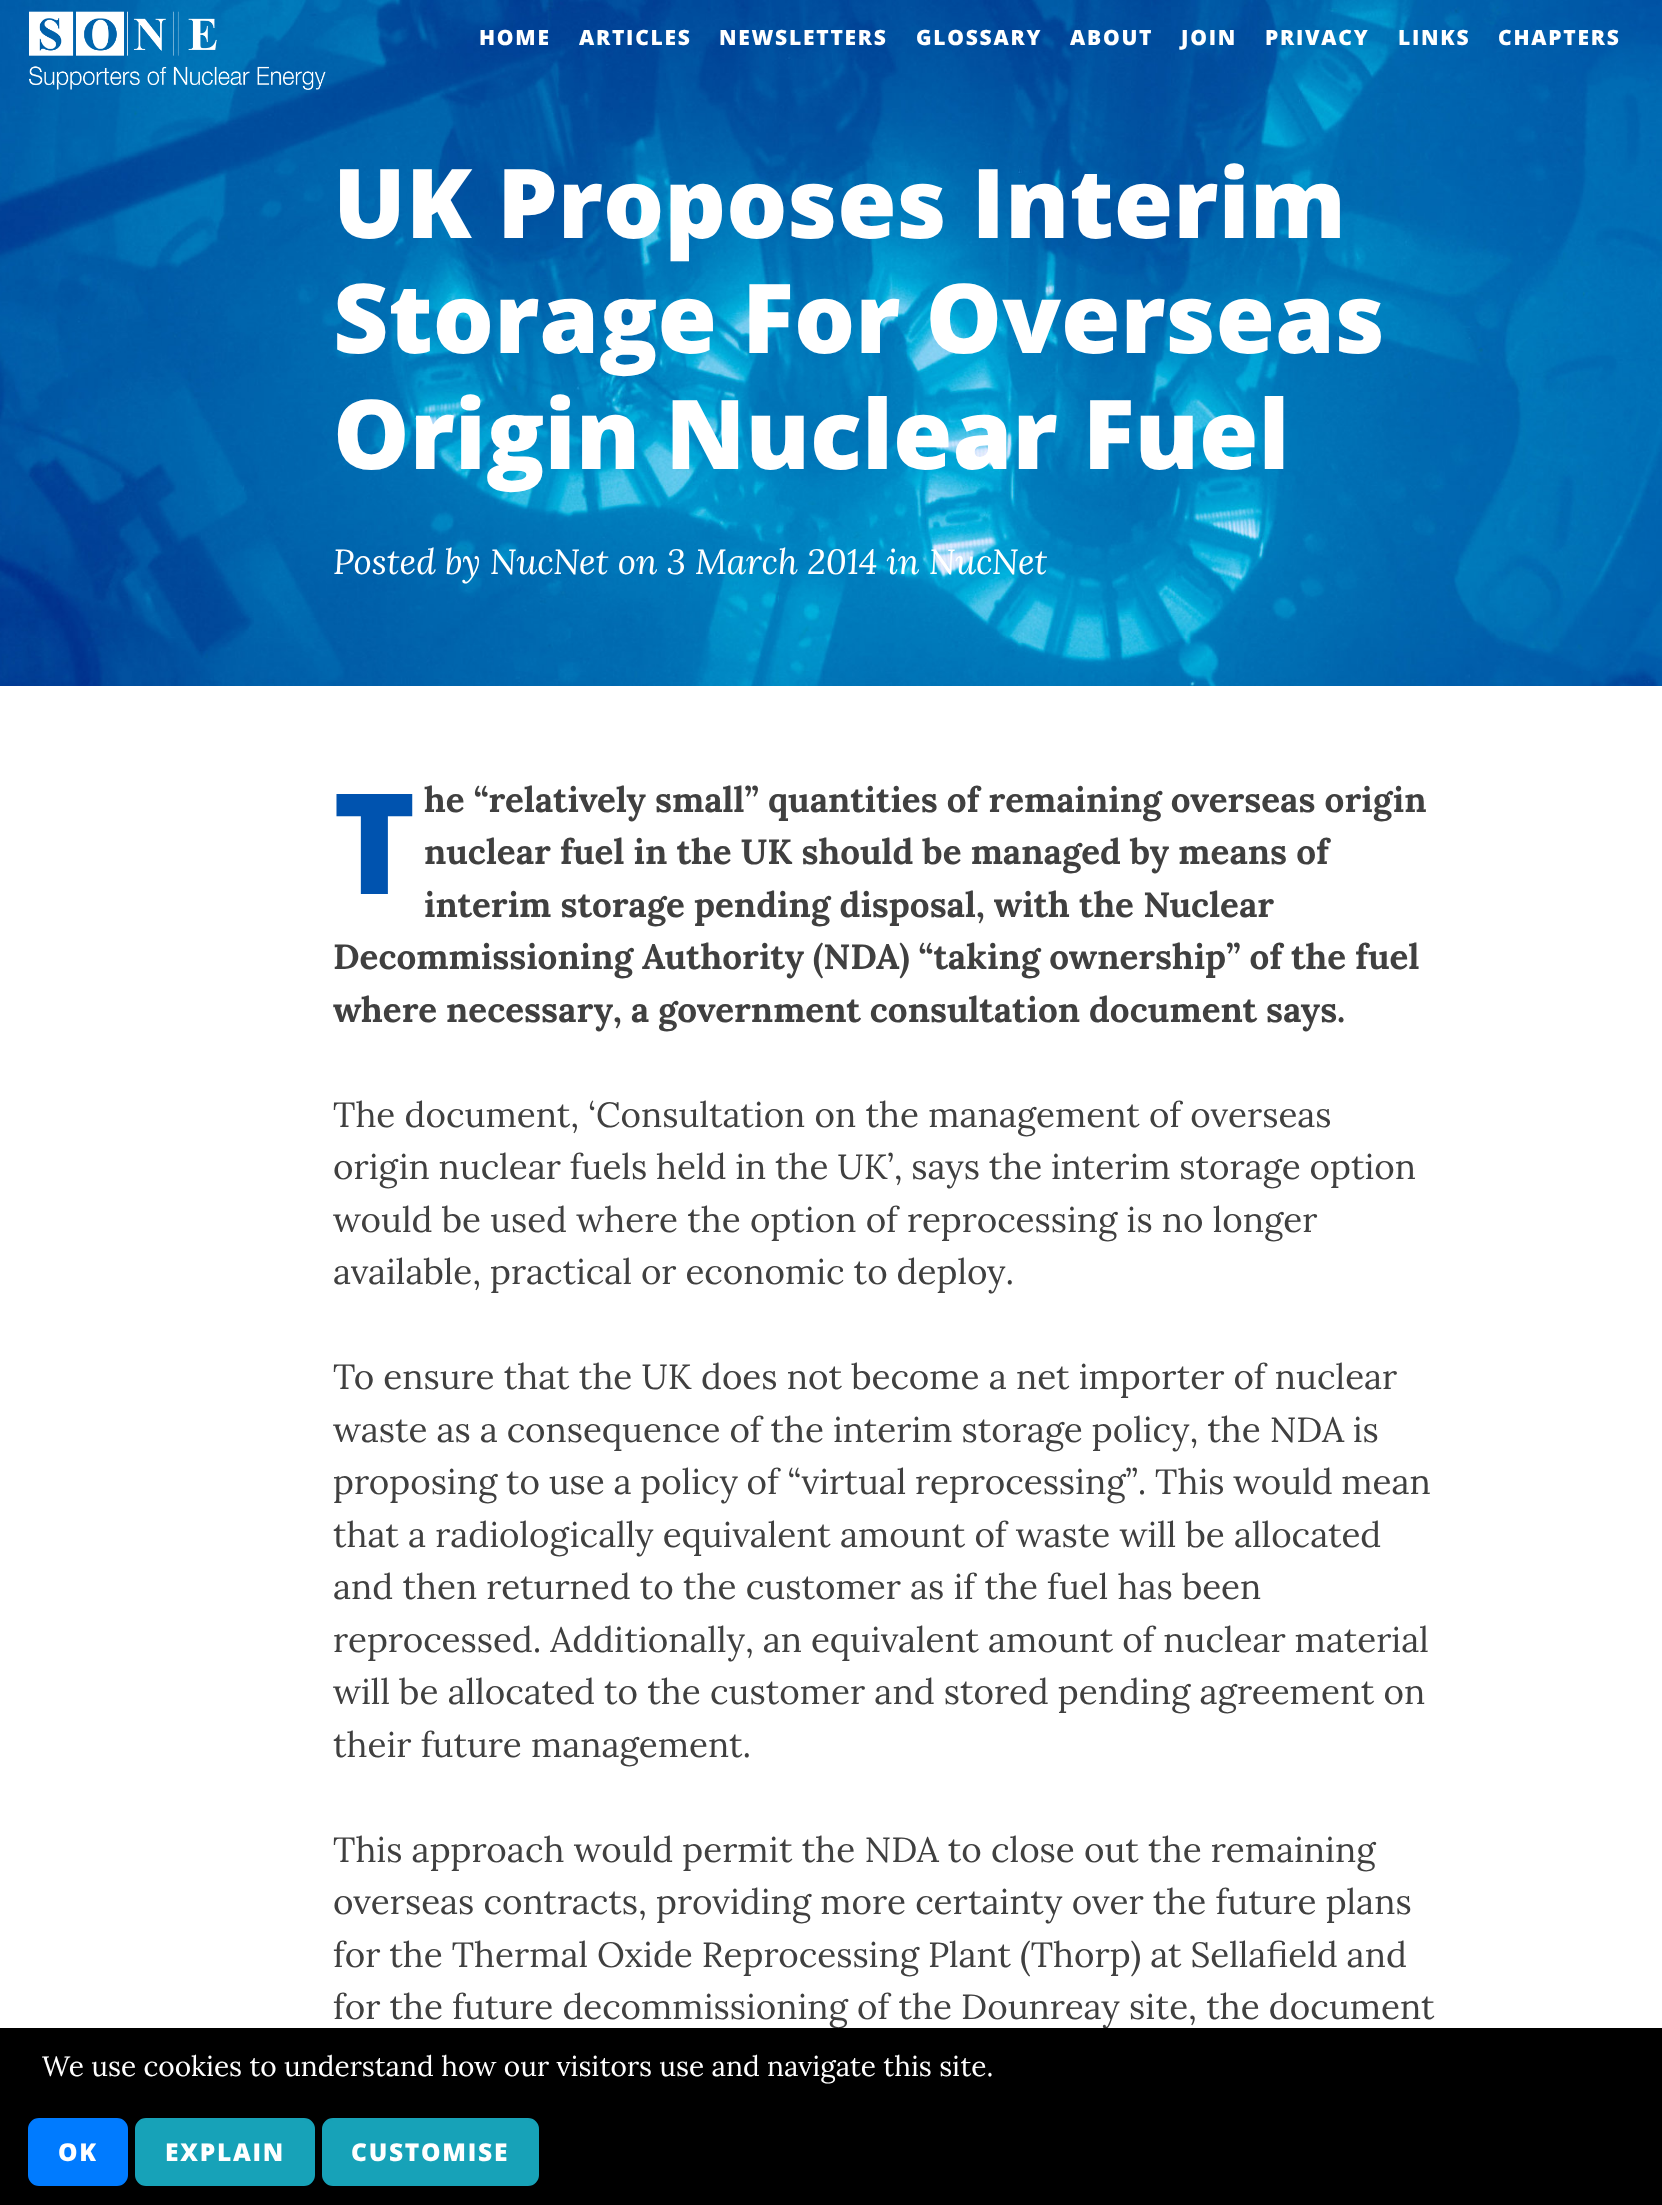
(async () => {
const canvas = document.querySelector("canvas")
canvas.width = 1662
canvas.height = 2205
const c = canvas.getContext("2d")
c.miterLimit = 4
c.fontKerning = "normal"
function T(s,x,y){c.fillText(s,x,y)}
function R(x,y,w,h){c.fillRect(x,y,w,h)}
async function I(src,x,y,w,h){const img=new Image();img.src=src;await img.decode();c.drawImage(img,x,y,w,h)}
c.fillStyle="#fff"
R(0,0,1662,2205)
await I("1.png",0,0,1662,686)
c.letterSpacing="1.75px"
c.font="800 21px Open Sans"
T("HOME",479,45)
T("ARTICLES",579,45)
T("NEWSLETTERS",719,45)
T("GLOSSARY",916,45)
T("ABOUT",1070,45)
T("JOIN",1181,45)
T("PRIVACY",1265,45)
T("LINKS",1398,45)
T("CHAPTERS",1498,45)
await I("2.png",29,11,297,79)
c.letterSpacing="0px"
c.font="800 96.25px Open Sans"
T("UK Proposes Interim",333,238)
T("Storage For Overseas",333,353)
T("Origin Nuclear Fuel",333,469)
c.font="italic 35px Lora"
T("Posted by NucNet on 3 March 2014 in NucNet",333,574)
c.font="900 140px Noto Sans"
c.fillStyle="#0053af"
T("T",333,894)
c.font="bold 35px Lora"
c.fillStyle="#404040"
T("he “relatively small” quantities of remaining overseas origin",424,812)
T("nuclear fuel in the UK should be managed by means of",424,864)
T("interim storage pending disposal, with the Nuclear",424,917)
c.wordSpacing="-0.25px"
T("Decommissioning Authority (NDA) “taking ownership” of the fuel",333,969)
T("where necessary, a government consultation document says.",333,1022)
c.wordSpacing="0px"
c.font="35px Lora"
T("The document, ‘Consultation on the management of overseas",333,1127)
c.wordSpacing="-0.4px"
T("origin nuclear fuels held in the UK’, says the interim storage option",333,1179)
c.wordSpacing="0px"
T("would be used where the option of reprocessing is no longer",333,1232)
c.wordSpacing="-0.25px"
T("available, practical or economic to deploy.",333,1284)
c.wordSpacing="0px"
T("To ensure that the UK does not become a net importer of nuclear",333,1389)
c.wordSpacing="-0.25px"
T("waste as a consequence of the interim storage policy, the NDA is",333,1442)
c.wordSpacing="-0.5px"
T("proposing to use a policy of “virtual reprocessing”. This would mean",333,1494)
c.wordSpacing="0px"
T("that a radiologically equivalent amount of waste will be allocated",333,1547)
T("and then returned to the customer as if the fuel has been",333,1599)
c.wordSpacing="-0.25px"
T("reprocessed. Additionally, an equivalent amount of nuclear material",333,1652)
c.wordSpacing="0px"
T("will be allocated to the customer and stored pending agreement on",333,1704)
T("their future management.",333,1757)
T("This approach would permit the NDA to close out the remaining",333,1862)
T("overseas contracts, providing more certainty over the future plans",333,1914)
c.wordSpacing="-0.25px"
T("for the Thermal Oxide Reprocessing Plant (Thorp) at Sellafield and",333,1967)
c.wordSpacing="0px"
T("for the future decommissioning of the Dounreay site, the document",333,2019)
c.fillStyle="#000"
R(0,2028,1662,177)
c.font="28px Lora"
c.fillStyle="#fff"
T("We use cookies to understand how our visitors use and navigate this site.",42,2076)
c.fillStyle="#007bff"
c.beginPath()
c.roundRect(29,2119,98,66,10)
c.fill()
c.strokeStyle="#007bff"
c.lineWidth=2
c.stroke()
c.letterSpacing="1.75px"
c.font="800 24.5px Open Sans"
c.fillStyle="#fff"
T("OK",58,2161)
c.fillStyle="#17a2b8"
c.beginPath()
c.roundRect(136,2119,178,66,10)
c.fill()
c.strokeStyle="#17a2b8"
c.stroke()
c.fillStyle="#fff"
T("EXPLAIN",165,2161)
c.fillStyle="#17a2b8"
c.beginPath()
c.roundRect(323,2119,215,66,10)
c.fill()
c.stroke()
c.fillStyle="#fff"
T("CUSTOMISE",351,2161)
})()
